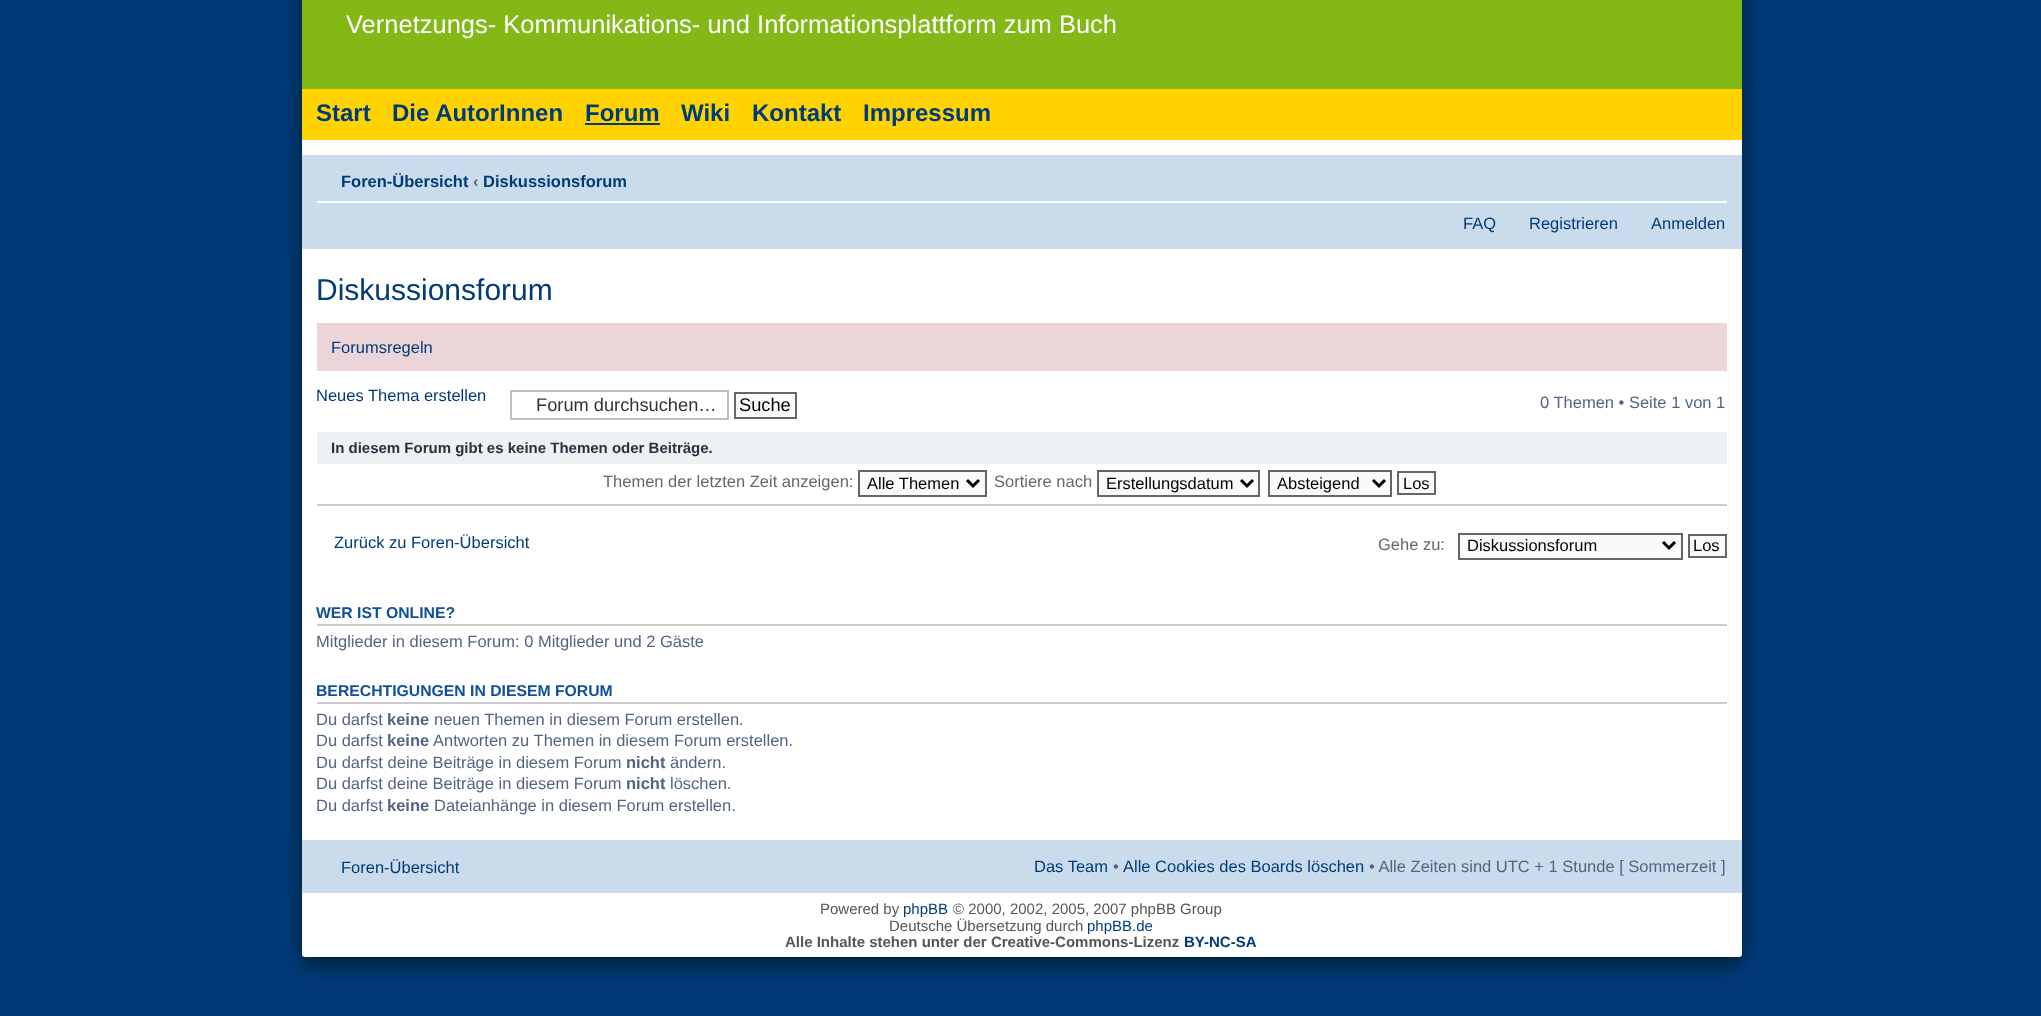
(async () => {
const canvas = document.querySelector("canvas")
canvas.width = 2041
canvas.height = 1016
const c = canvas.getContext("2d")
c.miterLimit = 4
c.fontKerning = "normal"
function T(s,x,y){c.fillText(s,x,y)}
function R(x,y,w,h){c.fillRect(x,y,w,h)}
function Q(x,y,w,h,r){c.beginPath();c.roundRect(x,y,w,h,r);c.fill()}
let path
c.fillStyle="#003b79"
R(0,0,2041,1016)
c.fillStyle="#001f33"
c.filter="blur(11px)"
c.beginPath()
c.roundRect(302,-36,1440,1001,3)
c.fill()
c.filter="none"
c.fillStyle="#fff"
Q(302,-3,1440,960,3)
c.fillStyle="#83b817"
R(302,0,1440,89)
c.font="25.5px Liberation Sans"
c.fillStyle="#fff"
T("Vernetzungs- Kommunikations- und Informationsplattform zum Buch",346,33)
c.fillStyle="#fed300"
R(302,89,1440,51)
c.font="bold 24px Liberation Sans"
c.fillStyle="#003b79"
T("Start",316,121)
T("Die AutorInnen",392,121)
T("Forum",585,121)
R(585,123,75,2)
T("Wiki",681,121)
T("Kontakt",752,121)
T("Impressum",863,121)
c.fillStyle="#cadceb"
R(302,155,1440,94)
c.fillStyle="#fff"
R(317,201,1410,2)
c.font="bold 16.5px Liberation Sans"
c.fillStyle="#003b79"
T("Foren-Übersicht",341,187)
c.fillStyle="#536482"
T("‹",473,187)
c.fillStyle="#003b79"
T("Diskussionsforum",483,187)
c.font="16.5px Liberation Sans"
T("FAQ",1463,229)
T("Registrieren",1529,229)
T("Anmelden",1651,229)
c.font="30px Liberation Sans"
T("Diskussionsforum",316,300)
c.fillStyle="#ecd5d8"
R(317,323,1410,48)
c.font="16.5px Liberation Sans"
c.fillStyle="#003b79"
T("Forumsregeln",331,353)
T("Neues Thema erstellen",316,401)
c.strokeStyle="#c0c0c0"
c.lineWidth=2
c.strokeRect(511,391,217,28)
c.font="18.25px Liberation Sans"
c.fillStyle="#333"
T("Forum durchsuchen…",536,411)
c.fillStyle="#fafafa"
c.beginPath()
c.rect(735,393,61,25)
c.fill()
c.strokeStyle="#666"
c.stroke()
c.fillStyle="#000"
T("Suche",739,411)
c.font="16.5px Liberation Sans"
c.fillStyle="#536482"
T("0 Themen • Seite 1 von 1",1540,408)
c.fillStyle="#ecf1f3"
R(317,432,1410,32)
c.font="bold 15px Liberation Sans"
c.fillStyle="#28313f"
T("In diesem Forum gibt es keine Themen oder Beiträge.",331,453)
c.font="16.5px Liberation Sans"
c.fillStyle="#676767"
T("Themen der letzten Zeit anzeigen:",603,487)
c.fillStyle="#fafafa"
c.beginPath()
c.rect(859,471,127,25)
c.fill()
c.stroke()
path = new Path2D("M967 480l6 6l6-6")
c.strokeStyle="#000"
c.lineWidth=3
c.stroke(path)
c.fillStyle="#000"
T("Alle Themen",867,489)
c.fillStyle="#676767"
T("Sortiere nach",994,487)
c.fillStyle="#fafafa"
c.beginPath()
c.rect(1098,471,161,25)
c.fill()
c.strokeStyle="#666"
c.lineWidth=2
c.stroke()
path = new Path2D("M1241 480l6 6l6-6")
c.strokeStyle="#000"
c.lineWidth=3
c.stroke(path)
c.fillStyle="#000"
T("Erstellungsdatum",1106,489)
c.fillStyle="#fafafa"
c.beginPath()
c.rect(1269,471,122,25)
c.fill()
c.strokeStyle="#666"
c.lineWidth=2
c.stroke()
path = new Path2D("M1373 480l6 6l6-6")
c.strokeStyle="#000"
c.lineWidth=3
c.stroke(path)
c.fillStyle="#000"
T("Absteigend",1277,489)
c.fillStyle="#fafafa"
c.beginPath()
c.rect(1398,472,37,22)
c.fill()
c.strokeStyle="#666"
c.lineWidth=2
c.stroke()
c.fillStyle="#000"
T("Los",1403,489)
c.fillStyle="#ccc"
R(317,504,1410,2)
c.fillStyle="#003b79"
T("Zurück zu Foren-Übersicht",334,548)
c.fillStyle="#676767"
T("Gehe zu:",1378,550)
c.fillStyle="#fafafa"
c.beginPath()
c.rect(1459,534,223,25)
c.fill()
c.stroke()
path = new Path2D("M1663 542l6 6l6-6")
c.strokeStyle="#000"
c.lineWidth=3
c.stroke(path)
c.fillStyle="#000"
T("Diskussionsforum",1467,551)
c.fillStyle="#fafafa"
c.beginPath()
c.rect(1689,535,37,22)
c.fill()
c.strokeStyle="#666"
c.lineWidth=2
c.stroke()
c.fillStyle="#000"
T("Los",1693,551)
c.fillStyle="#ccc"
R(317,624,1410,2)
c.font="bold 15.75px Liberation Sans"
c.fillStyle="#115098"
T("WER IST ONLINE?",316,618)
c.font="16.5px Liberation Sans"
c.fillStyle="#536482"
T("Mitglieder in diesem Forum: 0 Mitglieder und 2 Gäste",316,647)
c.fillStyle="#ccc"
R(317,702,1410,2)
c.font="bold 15.75px Liberation Sans"
c.fillStyle="#115098"
T("BERECHTIGUNGEN IN DIESEM FORUM",316,696)
c.font="16.5px Liberation Sans"
c.fillStyle="#536482"
T("Du darfst",316,725)
c.font="bold 16.5px Liberation Sans"
T("keine",387,725)
c.font="16.5px Liberation Sans"
T("neuen Themen in diesem Forum erstellen.",434,725)
T("Du darfst",316,746)
c.font="bold 16.5px Liberation Sans"
T("keine",387,746)
c.font="16.5px Liberation Sans"
T("Antworten zu Themen in diesem Forum erstellen.",433,746)
T("Du darfst deine Beiträge in diesem Forum",316,768)
c.font="bold 16.5px Liberation Sans"
T("nicht",626,768)
c.font="16.5px Liberation Sans"
T("ändern.",670,768)
T("Du darfst deine Beiträge in diesem Forum",316,789)
c.font="bold 16.5px Liberation Sans"
T("nicht",626,789)
c.font="16.5px Liberation Sans"
T("löschen.",670,789)
T("Du darfst",316,811)
c.font="bold 16.5px Liberation Sans"
T("keine",387,811)
c.font="16.5px Liberation Sans"
T("Dateianhänge in diesem Forum erstellen.",434,811)
c.fillStyle="#cadceb"
R(302,840,1440,53)
c.fillStyle="#003b79"
T("Foren-Übersicht",341,873)
T("Das Team",1034,872)
c.fillStyle="#536482"
T("•",1113,872)
c.fillStyle="#003b79"
T("Alle Cookies des Boards löschen",1123,872)
c.fillStyle="#536482"
T("• Alle Zeiten sind UTC + 1 Stunde [ Sommerzeit ]",1369,872)
c.font="15px Liberation Sans"
c.fillStyle="#555"
T("Powered by",820,914)
c.fillStyle="#003b79"
T("phpBB",903,914)
c.fillStyle="#555"
T("© 2000, 2002, 2005, 2007 phpBB Group",953,914)
T("Deutsche Übersetzung durch",889,931)
c.fillStyle="#003b79"
T("phpBB.de",1087,931)
c.font="bold 15px Liberation Sans"
c.fillStyle="#555"
T("Alle Inhalte stehen unter der Creative-Commons-Lizenz",785,947)
c.fillStyle="#003b79"
T("BY-NC-SA",1184,947)
})()
